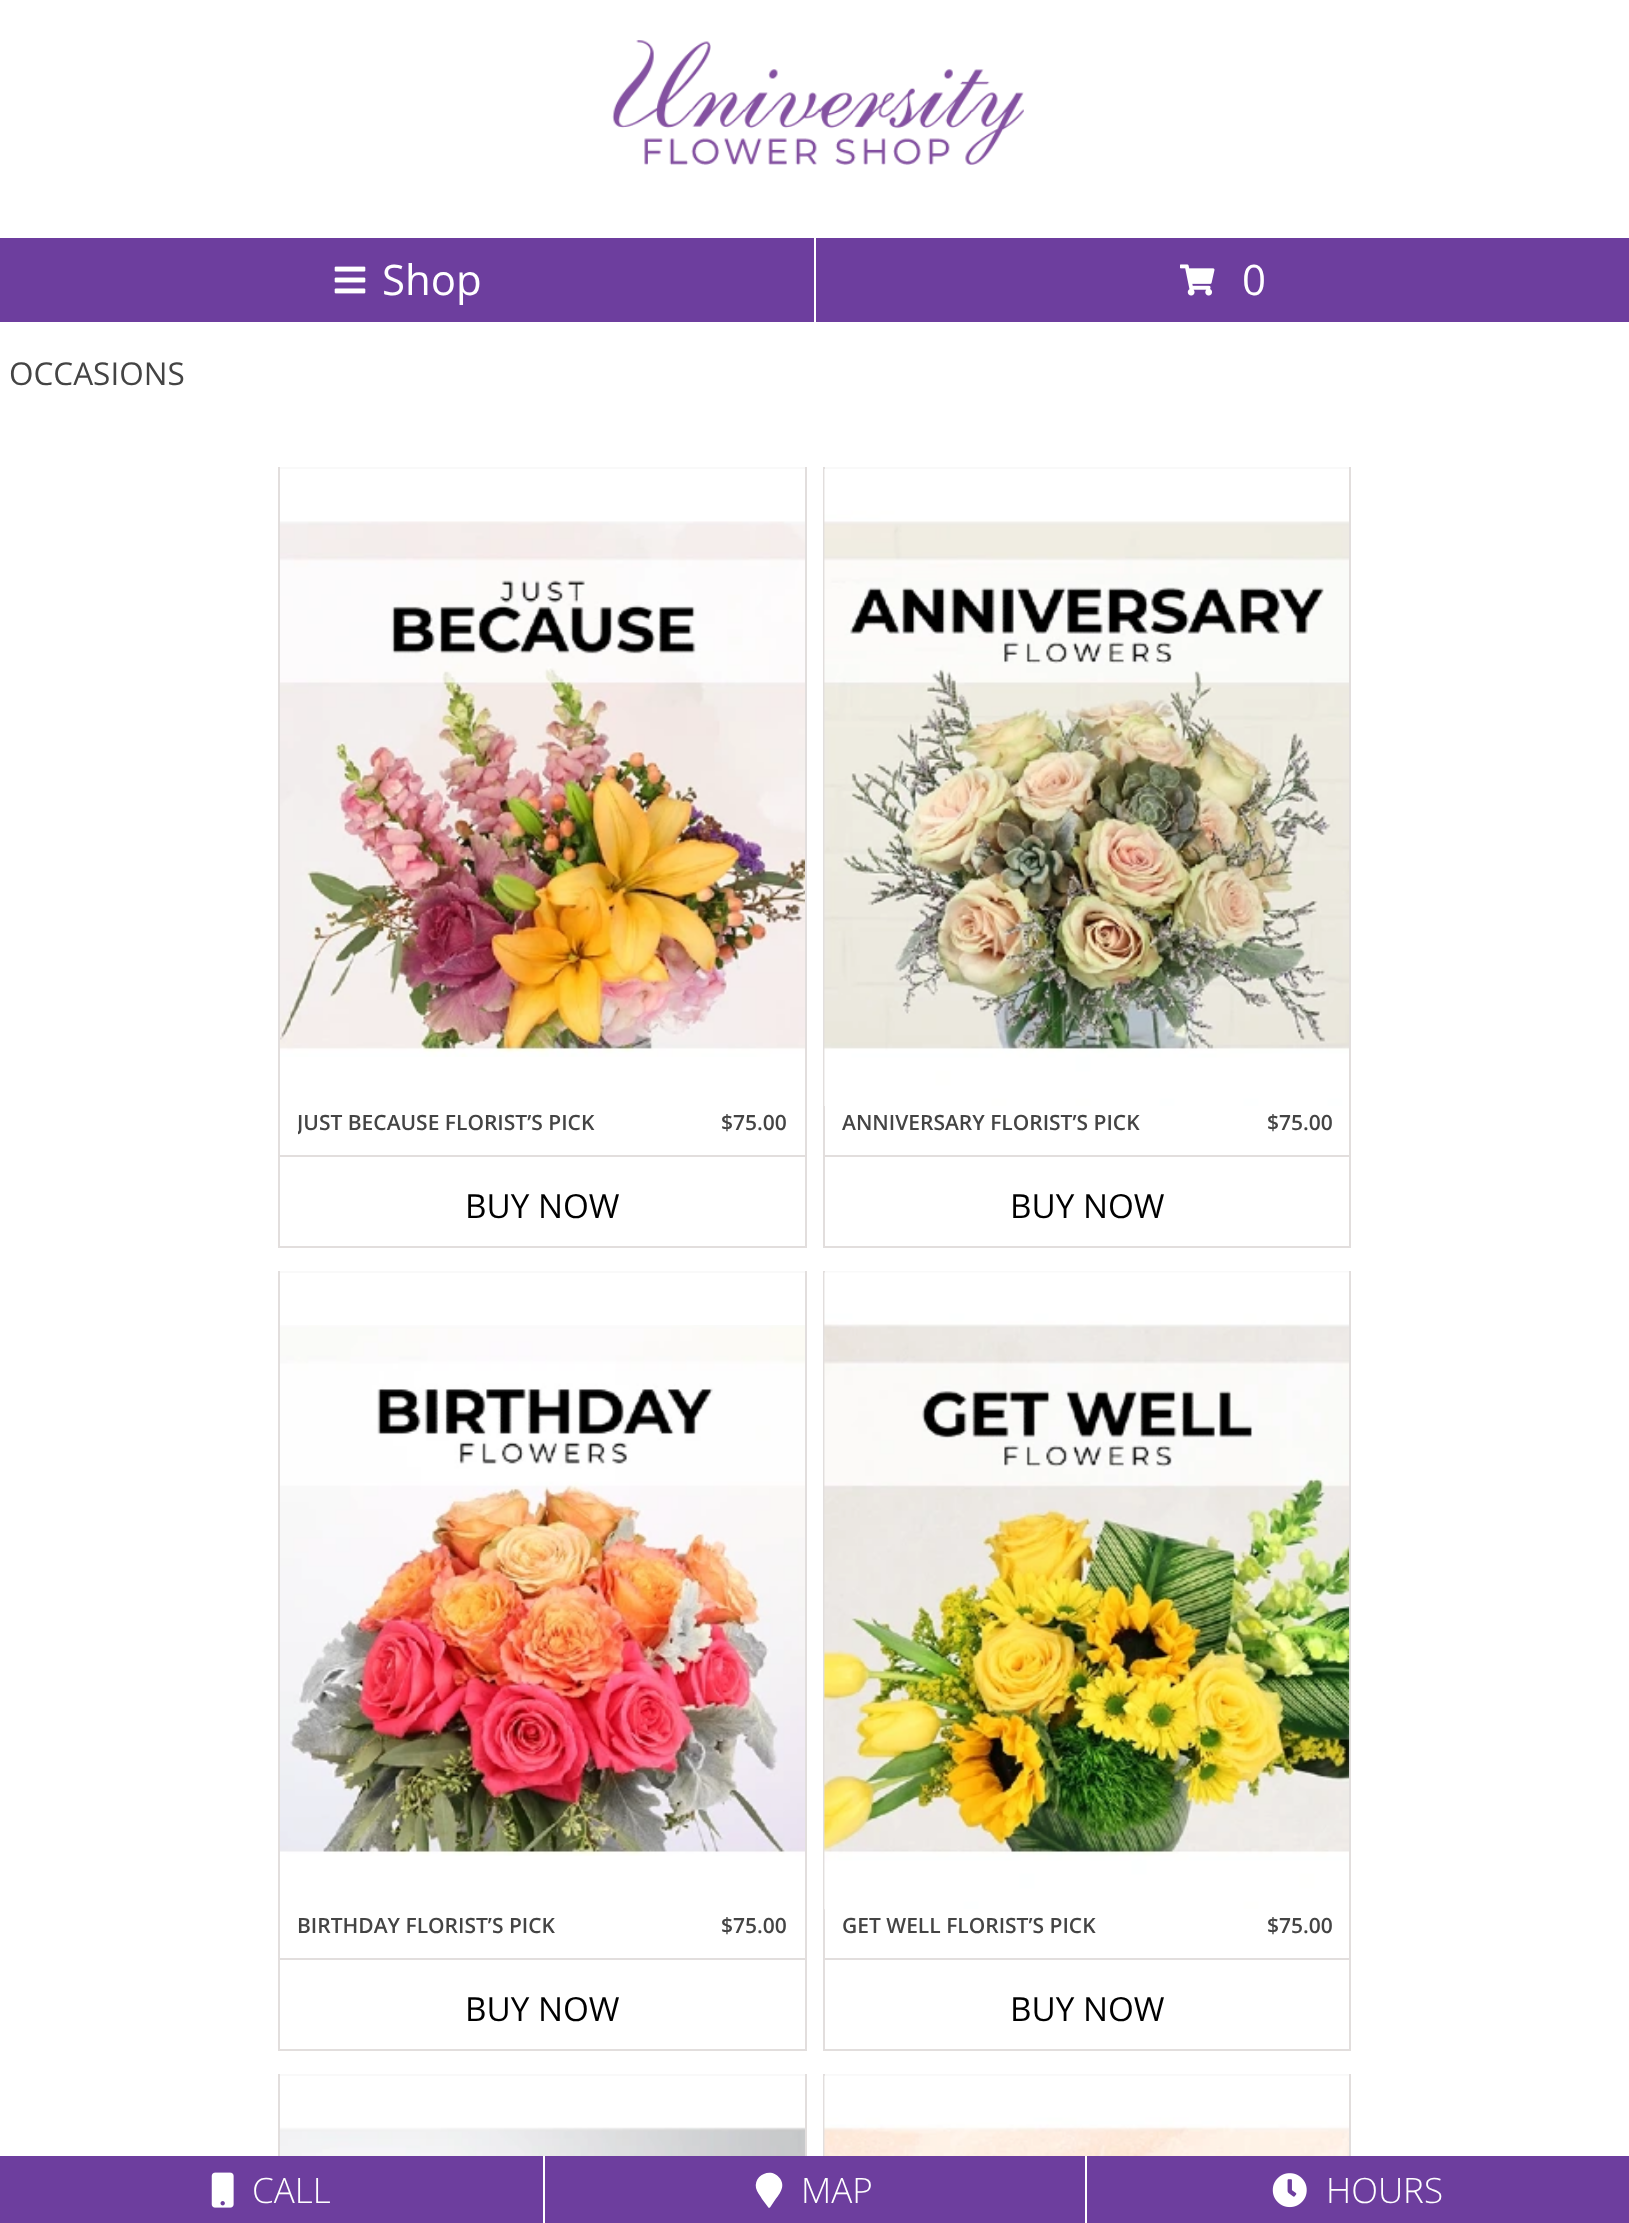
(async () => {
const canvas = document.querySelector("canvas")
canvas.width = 1629
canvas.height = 2223
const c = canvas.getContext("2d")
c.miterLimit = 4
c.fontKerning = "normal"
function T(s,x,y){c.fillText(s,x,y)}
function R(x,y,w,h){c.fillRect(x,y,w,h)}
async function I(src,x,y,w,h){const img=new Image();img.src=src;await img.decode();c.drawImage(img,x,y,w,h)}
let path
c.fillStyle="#fff"
R(0,0,1629,2223)
await I("1.png",612,40,412,125)
c.fillStyle="#6d3e9e"
R(0,238,814,84)
await I("2.png",334,266,32,28)
c.font="42px Open Sans"
c.fillStyle="#fff"
T("Shop",382,295)
c.fillStyle="#6d3e9e"
R(816,238,813,84)
await I("3.png",1180,264,35,32)
c.fillStyle="#fff"
T("0",1242,295)
c.font="31.5px Open Sans"
c.fillStyle="#444"
T("OCCASIONS",9,385)
c.fillStyle="#f9f9f9"
R(278,467,529,2)
c.fillStyle="#e2dedd"
R(805,467,2,781)
R(278,1246,529,2)
R(278,467,2,781)
await I("4.png",280,521,525,536)
c.save()
c.beginPath()
c.rect(298,1108,327,30)
c.clip()
c.font="600 21px Open Sans"
c.fillStyle="#444"
T("JUST BECAUSE FLORIST’S PICK",297,1130)
c.restore()
c.font="600 21px Open Sans"
c.fillStyle="#444"
T("$75.00",721,1130)
c.fillStyle="#e2dedd"
R(280,1155,525,2)
c.font="33.25px Open Sans"
c.fillStyle="#000"
T("BUY NOW",465,1218)
c.fillStyle="#f9f9f9"
R(823,467,528,2)
c.fillStyle="#e2dedd"
R(1349,467,2,781)
R(823,1246,528,2)
R(823,467,2,781)
await I("5.png",824,469,525,637)
c.font="600 21px Open Sans"
c.fillStyle="#444"
T("ANNIVERSARY FLORIST’S PICK",842,1130)
T("$75.00",1267,1130)
c.fillStyle="#e2dedd"
R(824,1155,525,2)
c.font="33.25px Open Sans"
c.fillStyle="#000"
T("BUY NOW",1010,1218)
c.fillStyle="#f9f9f9"
R(278,1271,529,2)
c.fillStyle="#e2dedd"
R(805,1271,2,780)
R(278,2049,529,2)
R(278,1271,2,780)
await I("6.png",280,1325,525,531)
c.font="600 21px Open Sans"
c.fillStyle="#444"
T("BIRTHDAY FLORIST’S PICK",297,1933)
T("$75.00",721,1933)
c.fillStyle="#e2dedd"
R(280,1958,525,2)
c.font="33.25px Open Sans"
c.fillStyle="#000"
T("BUY NOW",465,2021)
c.fillStyle="#f9f9f9"
R(823,1271,528,2)
c.fillStyle="#e2dedd"
R(1349,1271,2,780)
R(823,2049,528,2)
R(823,1271,2,780)
await I("7.png",824,1272,526,638)
c.font="600 21px Open Sans"
c.fillStyle="#444"
T("GET WELL FLORIST’S PICK",842,1933)
T("$75.00",1267,1933)
c.fillStyle="#e2dedd"
R(824,1958,525,2)
c.font="33.25px Open Sans"
c.fillStyle="#000"
T("BUY NOW",1010,2021)
c.fillStyle="#f9f9f9"
R(278,2074,529,2)
c.fillStyle="#e2dedd"
R(805,2074,2,82)
R(278,2074,2,82)
await I("8.png",280,2127,525,29)
c.fillStyle="#f9f9f9"
R(823,2074,528,2)
c.fillStyle="#e2dedd"
R(1349,2074,2,82)
R(823,2074,2,82)
await I("9.png",824,2075,525,81)
c.fillStyle="#6d3e9e"
R(0,2156,543,67)
await I("10.png",211,2172,23,36)
c.font="300 35px Open Sans"
c.fillStyle="#fff"
T("CALL",252,2203)
c.fillStyle="#6d3e9e"
R(545,2156,540,67)
c.fillStyle="#fff"
path = new Path2D("M768 2207l-6-8c-2-3.5-5-7-6-11c-2.5-13.5 16-21.5 24-9.5c6 8.5-1 16-6 23l-4 6c-1 .5-2 0-2-.5z")
c.fill(path)
T("MAP",801,2203)
c.fillStyle="#6d3e9e"
R(1087,2156,542,67)
await I("11.png",1272,2173,35,35)
c.fillStyle="#fff"
T("HOURS",1326,2203)
})()
